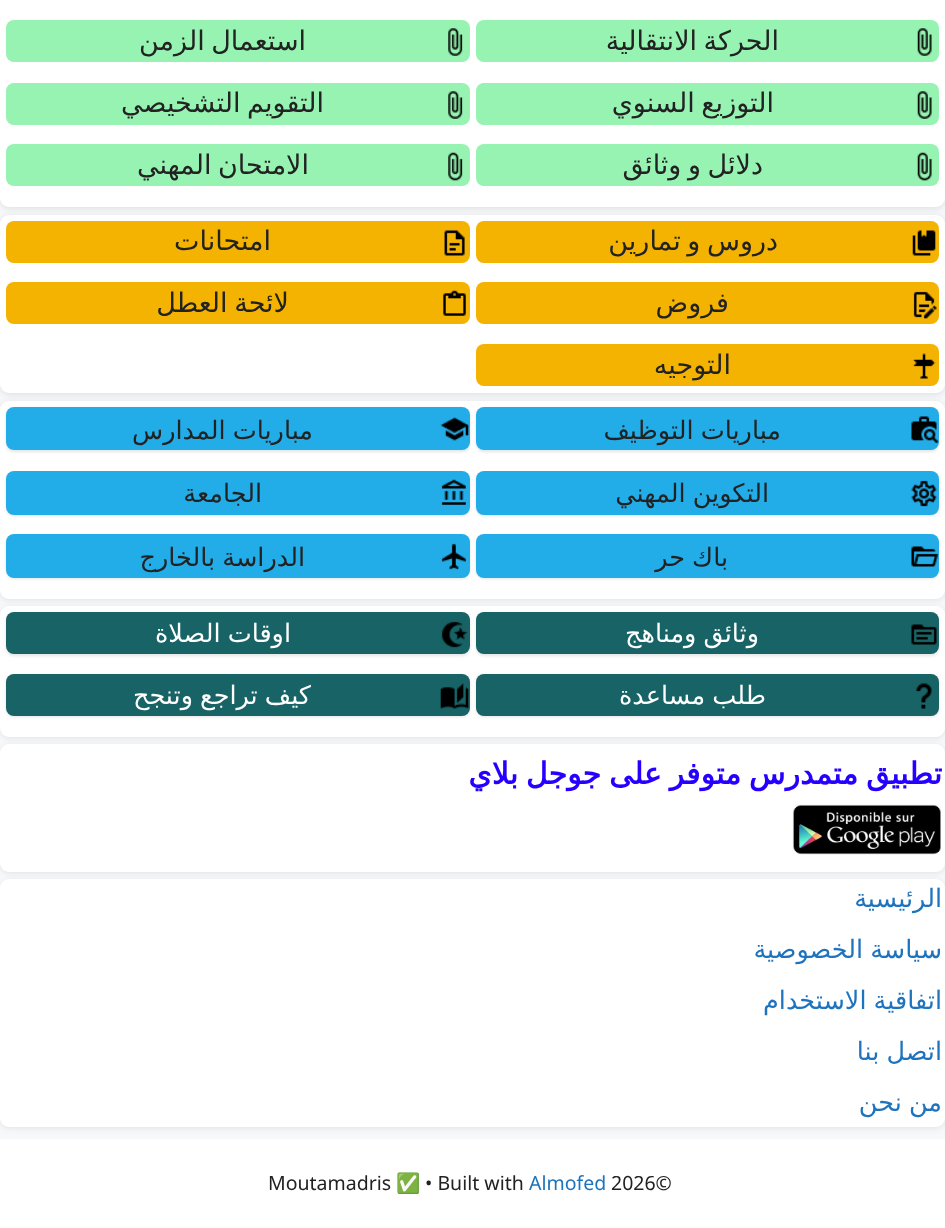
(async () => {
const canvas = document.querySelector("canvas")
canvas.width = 945
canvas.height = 1228
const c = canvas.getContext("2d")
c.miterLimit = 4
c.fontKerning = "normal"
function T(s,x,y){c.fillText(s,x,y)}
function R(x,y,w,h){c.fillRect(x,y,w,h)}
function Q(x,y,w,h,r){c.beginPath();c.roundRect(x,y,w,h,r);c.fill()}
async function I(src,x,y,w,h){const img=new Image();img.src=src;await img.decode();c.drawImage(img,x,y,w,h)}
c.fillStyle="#f7f8f9"
R(0,0,945,1228)
c.fillStyle="#00000017"
c.filter="blur(3px)"
c.beginPath()
c.roundRect(0,-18,945,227,9)
c.fill()
c.filter="none"
c.fillStyle="#fff"
Q(0,-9,945,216,9)
c.fillStyle="#96f3b1"
Q(476,20,463,42,8)
await I("1.png",917,28,15,28)
c.wordSpacing="-2px"
c.direction="rtl"
c.font="27px DejaVu Sans"
c.fillStyle="#222"
T("الحركة الانتقالية",779,50)
c.fillStyle="#96f3b1"
Q(6,20,464,42,8)
await I("2.png",448,28,15,28)
c.fillStyle="#222"
T("استعمال الزمن",306,50)
c.fillStyle="#96f3b1"
Q(476,83,463,42,8)
await I("3.png",917,91,15,28)
c.fillStyle="#222"
T("التوزيع السنوي",774,112)
c.fillStyle="#96f3b1"
Q(6,83,464,42,8)
await I("4.png",448,91,15,28)
c.fillStyle="#222"
T("التقويم التشخيصي",324,112)
c.fillStyle="#96f3b1"
Q(476,144,463,42,8)
await I("5.png",917,152,15,29)
c.fillStyle="#222"
T("دلائل و وثائق",763,174)
c.fillStyle="#96f3b1"
Q(6,144,464,42,8)
await I("6.png",448,152,15,29)
c.fillStyle="#222"
T("الامتحان المهني",309,174)
c.fillStyle="#00000017"
c.filter="blur(3px)"
c.beginPath()
c.roundRect(0,216,945,179,9)
c.fill()
c.filter="none"
c.fillStyle="#fff"
Q(0,215,945,178,9)
c.fillStyle="#f5b301"
Q(476,221,463,42,8)
await I("7.png",912,230,24,26)
c.fillStyle="#222"
T("دروس و تمارين",778,250)
c.fillStyle="#f5b301"
Q(6,221,464,42,8)
await I("8.png",444,230,21,26)
c.wordSpacing="0px"
c.fillStyle="#222"
T("امتحانات",271,250)
c.fillStyle="#f5b301"
Q(476,282,463,42,8)
await I("9.png",913,291,24,28)
c.fillStyle="#222"
T("فروض",729,312)
c.fillStyle="#f5b301"
Q(6,282,464,42,8)
await I("10.png",443,290,23,26)
c.wordSpacing="-2px"
c.fillStyle="#222"
T("لائحة العطل",289,312)
c.fillStyle="#f5b301"
Q(476,344,463,42,8)
await I("11.png",912,353,24,26)
c.wordSpacing="0px"
c.fillStyle="#222"
T("التوجيه",731,374)
c.fillStyle="#00000017"
c.filter="blur(3px)"
c.beginPath()
c.roundRect(0,402,945,198,9)
c.fill()
c.filter="none"
c.fillStyle="#fff"
Q(0,401,945,198,9)
c.fillStyle="#0000001a"
c.filter="blur(1.5px)"
c.beginPath()
c.roundRect(476,408,463,44,8)
c.fill()
c.filter="none"
c.fillStyle="#22ade9"
Q(476,407,463,43,8)
await I("12.png",911,416,28,28)
c.wordSpacing="-1px"
c.font="25.5px DejaVu Sans"
c.fillStyle="#222"
T("مباريات التوظيف",781,439)
c.fillStyle="#0000001a"
c.filter="blur(1.5px)"
c.beginPath()
c.roundRect(6,408,464,44,8)
c.fill()
c.filter="none"
c.fillStyle="#22ade9"
Q(6,407,464,43,8)
await I("13.png",440,417,29,24)
c.fillStyle="#222"
T("مباريات المدارس",313,439)
c.fillStyle="#0000001a"
c.filter="blur(1.5px)"
c.beginPath()
c.roundRect(476,473,463,43,8)
c.fill()
c.filter="none"
c.fillStyle="#22ade9"
Q(476,471,463,44,8)
await I("14.png",911,480,26,27)
c.fillStyle="#222"
T("التكوين المهني",769,502)
c.fillStyle="#0000001a"
c.filter="blur(1.5px)"
c.beginPath()
c.roundRect(6,473,464,43,8)
c.fill()
c.filter="none"
c.fillStyle="#22ade9"
Q(6,471,464,44,8)
await I("15.png",441,479,25,26)
c.wordSpacing="0px"
c.fillStyle="#222"
T("الجامعة",262,502)
c.fillStyle="#0000001a"
c.filter="blur(1.5px)"
c.beginPath()
c.roundRect(476,536,463,43,8)
c.fill()
c.filter="none"
c.fillStyle="#22ade9"
Q(476,534,463,44,8)
await I("16.png",911,546,28,21)
c.wordSpacing="-1px"
c.fillStyle="#222"
T("باك حر",728,566)
c.fillStyle="#0000001a"
c.filter="blur(1.5px)"
c.beginPath()
c.roundRect(6,536,464,43,8)
c.fill()
c.filter="none"
c.fillStyle="#22ade9"
Q(6,534,464,44,8)
await I("17.png",441,543,25,27)
c.fillStyle="#222"
T("الدراسة بالخارج",305,566)
c.fillStyle="#00000017"
c.filter="blur(3px)"
c.beginPath()
c.roundRect(0,608,945,130,9)
c.fill()
c.filter="none"
c.fillStyle="#fff"
Q(0,606,945,131,9)
c.fillStyle="#0000001a"
c.filter="blur(1.5px)"
c.beginPath()
c.roundRect(476,614,463,42,8)
c.fill()
c.filter="none"
c.fillStyle="#176365"
Q(476,612,463,42,8)
await I("18.png",911,624,26,21)
c.fillStyle="#fff"
T("وثائق ومناهج",759,642)
c.fillStyle="#0000001a"
c.filter="blur(1.5px)"
c.beginPath()
c.roundRect(6,614,464,42,8)
c.fill()
c.filter="none"
c.fillStyle="#176365"
Q(6,612,464,42,8)
await I("19.png",441,621,27,27)
c.fillStyle="#fff"
T("اوقات الصلاة",291,642)
c.fillStyle="#0000001a"
c.filter="blur(1.5px)"
c.beginPath()
c.roundRect(476,675,463,42,8)
c.fill()
c.filter="none"
c.fillStyle="#176365"
Q(476,674,463,42,8)
await I("20.png",916,683,16,26)
c.fillStyle="#fff"
T("طلب مساعدة",766,704)
c.fillStyle="#0000001a"
c.filter="blur(1.5px)"
c.beginPath()
c.roundRect(6,675,464,42,8)
c.fill()
c.filter="none"
c.fillStyle="#176365"
Q(6,674,464,42,8)
await I("21.png",440,683,29,26)
c.fillStyle="#fff"
T("كيف تراجع وتنجح",311,704)
c.fillStyle="#00000017"
c.filter="blur(3px)"
c.beginPath()
c.roundRect(0,746,945,127,9)
c.fill()
c.filter="none"
c.fillStyle="#fff"
Q(0,744,945,128,9)
c.wordSpacing="-1.75px"
c.font="bold 30px DejaVu Sans"
c.fillStyle="#2500ff"
T("تطبيق متمدرس متوفر على جوجل بلاي",942,784)
await I("22.png",792,804,149,51)
c.fillStyle="#00000017"
c.filter="blur(3px)"
c.beginPath()
c.roundRect(0,881,945,247,9)
c.fill()
c.filter="none"
c.fillStyle="#fff"
Q(0,879,945,248,9)
c.wordSpacing="0px"
c.font="25.5px DejaVu Sans"
c.fillStyle="#1e73be"
T("الرئيسية",942,907)
c.wordSpacing="-1px"
T("سياسة الخصوصية",942,958)
T("اتفاقية الاستخدام",942,1009)
T("اتصل بنا",942,1060)
T("من نحن",942,1111)
c.fillStyle="#fff"
R(0,1139,945,89)
c.wordSpacing="0px"
c.direction="ltr"
c.font="19.5px Noto Sans"
c.fillStyle="#222"
T("2026©",611,1190)
c.fillStyle="#1e73be"
T("Almofed",529,1190)
c.fillStyle="#222"
T("• Built with",425,1190)
c.font="19.5px Noto Color Emoji"
T("✅",396,1190)
c.font="19.5px Noto Sans"
T("Moutamadris",268,1190)
})()
